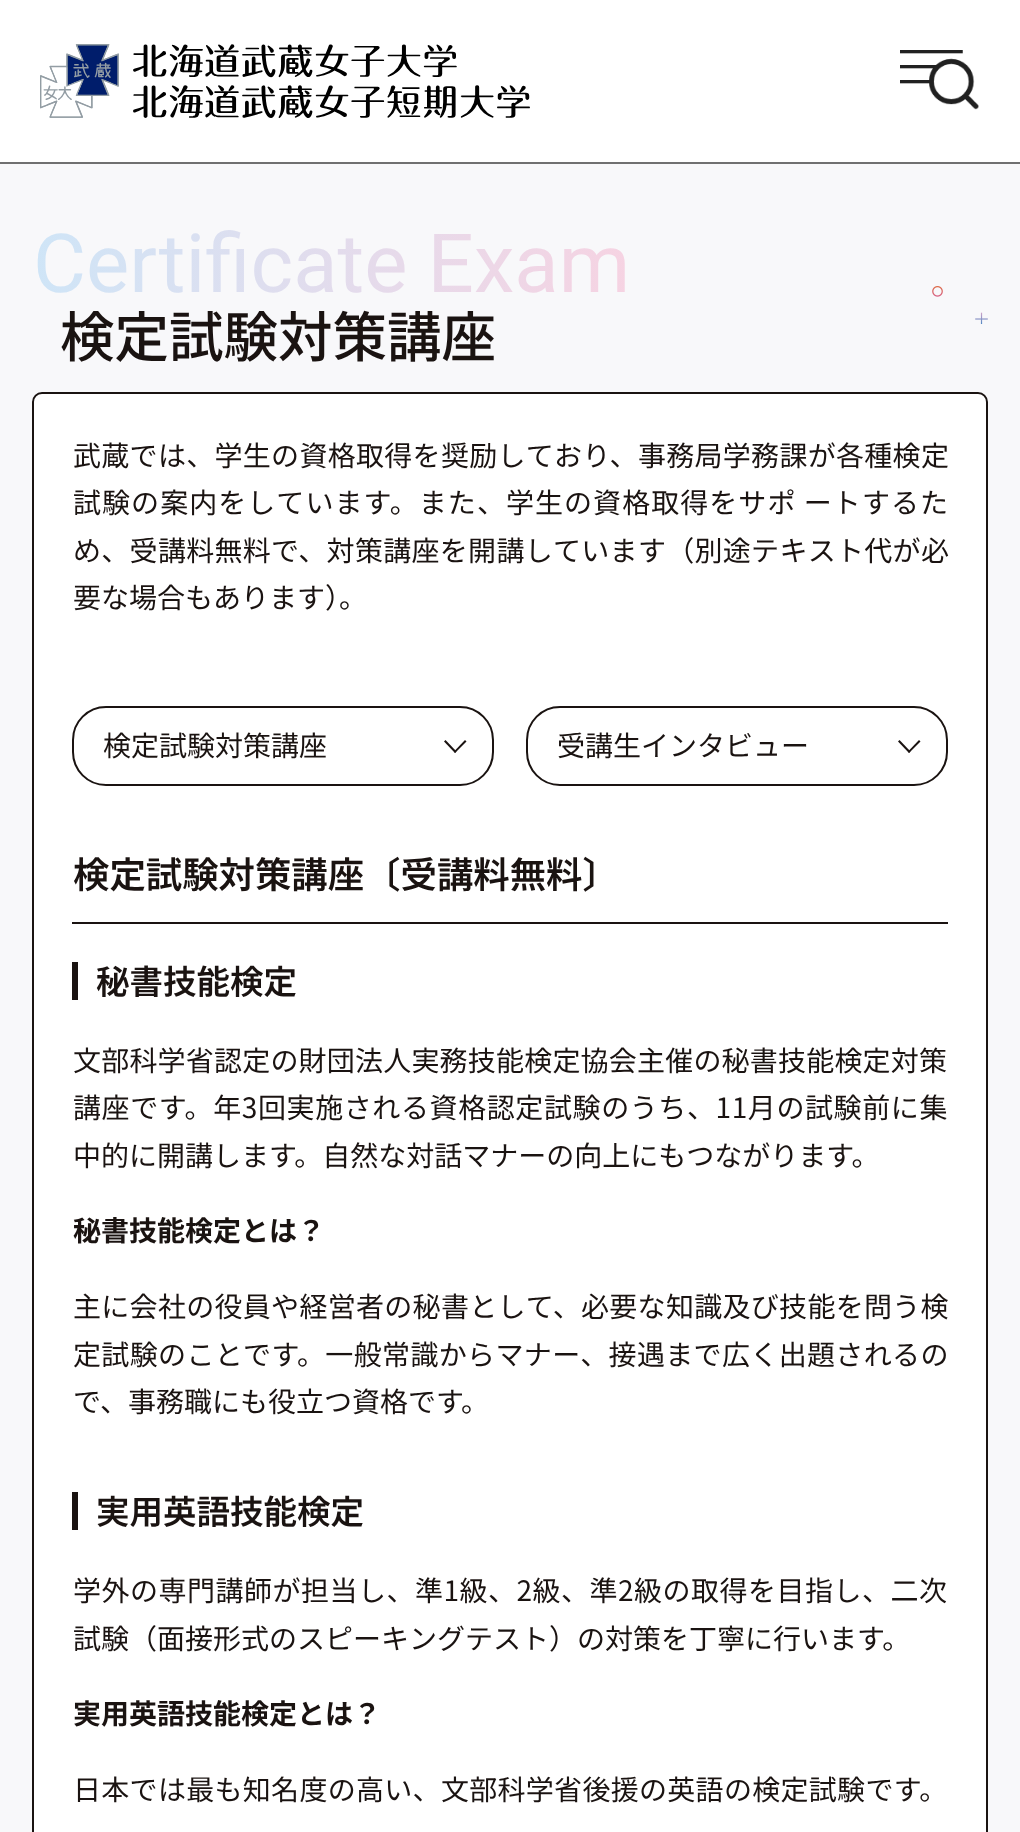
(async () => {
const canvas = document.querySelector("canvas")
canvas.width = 1020
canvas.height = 1832
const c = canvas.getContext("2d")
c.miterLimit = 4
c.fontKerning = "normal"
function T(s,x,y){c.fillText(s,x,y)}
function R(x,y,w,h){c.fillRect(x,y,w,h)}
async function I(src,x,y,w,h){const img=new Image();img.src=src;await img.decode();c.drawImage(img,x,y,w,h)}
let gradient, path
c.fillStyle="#f8f8fa"
R(0,0,1020,1832)
c.fillStyle="#fff"
R(0,0,1020,162)
c.fillStyle="#707070"
R(0,162,1020,2)
await I("1.png",40,44,490,74)
await I("2.png",900,50,79,60)
c.font="81.5px Roboto"
gradient = c.createLinearGradient(33,265,631,265)
gradient.addColorStop(0,"#cfe5f7")
gradient.addColorStop(1,"#f6d3e2")
c.fillStyle = gradient
T("Certificate Exam",33,292)
await I("3.png",932,286,56,38)
c.font="500 54.5px Noto Sans JP"
c.fillStyle="#1a1311"
T("検定試験対策講座",60,357)
c.fillStyle="#fff"
c.beginPath()
c.roundRect(33,393,954,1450,9)
c.fill()
c.strokeStyle="#1a1311"
c.lineWidth=2
c.stroke()
c.letterSpacing="0.3px"
c.font="28px Noto Sans JP"
c.fillStyle="#1a1311"
T("武蔵では、学生の資格取得を奨励しており、事務局学務課が各種検定",73,466)
c.letterSpacing="1.05px"
T("試験の案内をしています。また、学生の資格取得をサポ ートするた",73,513)
c.letterSpacing="0.3px"
T("め、受講料無料で、対策講座を開講しています（別途テキスト代が必",73,561)
c.letterSpacing="0px"
T("要な場合もあります）。",73,608)
c.beginPath()
c.roundRect(73,707,420,78,33)
c.stroke()
T("検定試験対策講座",103,756)
path = new Path2D("M466.5 741.5l-11.5 11.5l-1-1.5l11-11.5z")
c.fill(path)
path = new Path2D("M456.5 751.5l-1.5 1.5l-11-11.5l1.5-1.5z")
c.fill(path)
c.beginPath()
c.roundRect(527,707,420,78,33)
c.stroke()
T("受講生インタビュー",557,756)
path = new Path2D("M920.5 741.5l-11.5 11.5l-1-1.5l11-11.5z")
c.fill(path)
path = new Path2D("M910.5 751.5l-1.5 1.5l-11-11.5l1.5-1.5z")
c.fill(path)
R(72,922,876,2)
c.font="600 36.4px Noto Sans JP"
T("検定試験対策講座〔受講料無料〕",73,888)
R(72,962,6,38)
c.font="600 33.5px Noto Sans JP"
T("秘書技能検定",96,994)
c.letterSpacing="0.2px"
c.font="28px Noto Sans JP"
T("文部科学省認定の財団法人実務技能検定協会主催の秘書技能検定対策",73,1071)
c.letterSpacing="0.6px"
T("講座です。年3回実施される資格認定試験のうち、11月の試験前に集",73,1118)
c.letterSpacing="0px"
T("中的に開講します。自然な対話マナーの向上にもつながります。",73,1166)
c.font="bold 28px Noto Sans JP"
T("秘書技能検定とは？",73,1241)
c.letterSpacing="0.3px"
c.font="28px Noto Sans JP"
T("主に会社の役員や経営者の秘書として、必要な知識及び技能を問う検",73,1317)
c.letterSpacing="0.35px"
T("定試験のことです。一般常識からマナー、接遇まで広く出題されるの",73,1365)
c.letterSpacing="0px"
T("で、事務職にも役立つ資格です。",73,1412)
R(72,1492,6,38)
c.font="600 33.5px Noto Sans JP"
T("実用英語技能検定",96,1524)
c.letterSpacing="0.5px"
c.font="28px Noto Sans JP"
T("学外の専門講師が担当し、準1級、2級、準2級の取得を目指し、二次",73,1601)
c.letterSpacing="0px"
T("試験（面接形式のスピーキングテスト）の対策を丁寧に行います。",73,1649)
c.font="bold 28px Noto Sans JP"
T("実用英語技能検定とは？",73,1724)
c.letterSpacing="0.3px"
c.font="28px Noto Sans JP"
T("日本では最も知名度の高い、文部科学省後援の英語の検定試験です。",73,1800)
})()
